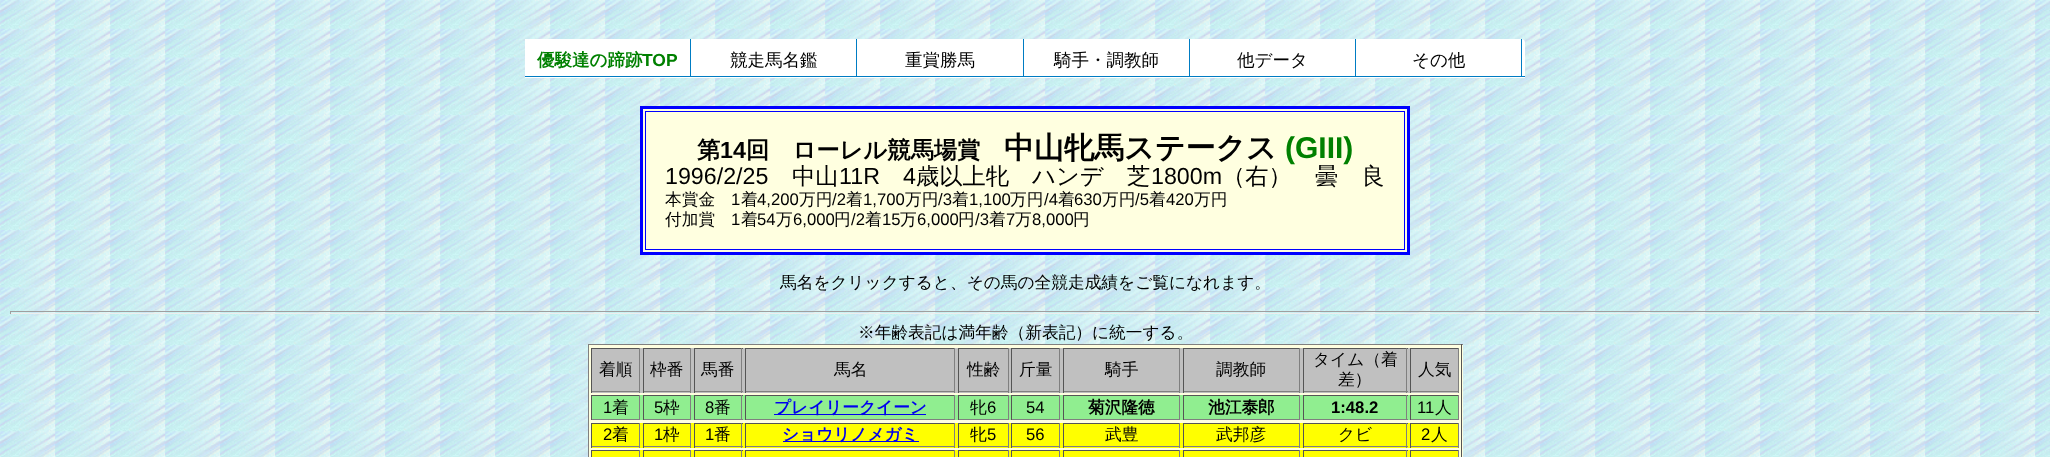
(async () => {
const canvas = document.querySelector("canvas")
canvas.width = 2050
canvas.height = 457
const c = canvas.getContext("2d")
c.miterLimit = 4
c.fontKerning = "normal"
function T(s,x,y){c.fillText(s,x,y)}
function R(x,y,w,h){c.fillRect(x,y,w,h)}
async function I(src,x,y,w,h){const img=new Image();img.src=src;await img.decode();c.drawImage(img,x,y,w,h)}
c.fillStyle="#fff"
R(0,0,2050,457)
await I("1.png",0,0,2050,457)
c.beginPath()
c.roundRect(525,39,1000,39,[4,4,0,0])
c.fill()
c.fillStyle="#007cc3"
R(525,76,1000,1)
R(690,39,1,37)
c.fillStyle="#fff"
R(525,39,3,4)
c.font="bold 17.5px WenQuanYi Zen Hei"
c.fillStyle="#008000"
T("優駿達の蹄跡",537,66)
c.font="bold 17.5px Liberation Sans"
T("TOP",642,66)
c.fillStyle="#007cc3"
R(856,39,1,37)
c.font="500 17.5px WenQuanYi Zen Hei"
c.fillStyle="#000"
T("競走馬名鑑",730,66)
c.fillStyle="#007cc3"
R(1023,39,1,37)
c.fillStyle="#000"
T("重賞勝馬",905,66)
c.fillStyle="#007cc3"
R(1189,39,1,37)
c.fillStyle="#000"
T("騎手・調教師",1054,66)
c.fillStyle="#007cc3"
R(1355,39,1,37)
c.fillStyle="#000"
T("他データ",1237,66)
c.fillStyle="#007cc3"
R(1521,39,1,37)
c.fillStyle="#000"
T("その他",1412,66)
c.fillStyle="#ffffe0"
c.beginPath()
c.rect(641.5,107.5,767,146)
c.fill()
c.strokeStyle="#00f"
c.lineWidth=3
c.stroke()
c.lineWidth=1
c.strokeRect(645.5,111.5,759,138)
c.font="bold 23.25px WenQuanYi Zen Hei"
c.fillStyle="#000"
T("第",697,158)
c.font="bold 23.25px Liberation Sans"
T("14",720,158)
c.font="bold 23.25px WenQuanYi Zen Hei"
T("回　ローレル競馬場賞",746,158)
c.font="bold 30px WenQuanYi Zen Hei"
T("中山牝馬ステークス",1004,158)
c.font="bold 30px Liberation Sans"
c.fillStyle="#008000"
T("(GIII)",1285,158)
c.font="23.25px Liberation Sans"
c.fillStyle="#000"
T("1996/2/25",665,184)
c.font="500 23.25px WenQuanYi Zen Hei"
T("中山",792,184)
c.font="23.25px Liberation Sans"
T("11R",839,184)
T("4",903,184)
c.font="500 23.25px WenQuanYi Zen Hei"
T("歳以上牝　ハンデ　芝",916,184)
c.font="23.25px Liberation Sans"
T("1800m",1151,184)
c.font="500 23.25px WenQuanYi Zen Hei"
T("（右）　曇　良",1222,184)
c.font="500 16.7px WenQuanYi Zen Hei"
T("本賞金",665,205)
c.font="16.7px Liberation Sans"
T("1",731,205)
c.font="500 16.7px WenQuanYi Zen Hei"
T("着",741,205)
c.font="16.7px Liberation Sans"
T("4,200",757,205)
c.font="500 16.7px WenQuanYi Zen Hei"
T("万円",799,205)
c.font="16.7px Liberation Sans"
T("/2",832,205)
c.font="500 16.7px WenQuanYi Zen Hei"
T("着",846,205)
c.font="16.7px Liberation Sans"
T("1,700",863,205)
c.font="500 16.7px WenQuanYi Zen Hei"
T("万円",905,205)
c.font="16.7px Liberation Sans"
T("/3",938,205)
c.font="500 16.7px WenQuanYi Zen Hei"
T("着",952,205)
c.font="16.7px Liberation Sans"
T("1,100",969,205)
c.font="500 16.7px WenQuanYi Zen Hei"
T("万円",1010,205)
c.font="16.7px Liberation Sans"
T("/4",1044,205)
c.font="500 16.7px WenQuanYi Zen Hei"
T("着",1058,205)
c.font="16.7px Liberation Sans"
T("630",1074,205)
c.font="500 16.7px WenQuanYi Zen Hei"
T("万円",1102,205)
c.font="16.7px Liberation Sans"
T("/5",1135,205)
c.font="500 16.7px WenQuanYi Zen Hei"
T("着",1149,205)
c.font="16.7px Liberation Sans"
T("420",1166,205)
c.font="500 16.7px WenQuanYi Zen Hei"
T("万円",1194,205)
T("付加賞",665,225)
c.font="16.7px Liberation Sans"
T("1",731,225)
c.font="500 16.7px WenQuanYi Zen Hei"
T("着",741,225)
c.font="16.7px Liberation Sans"
T("54",757,225)
c.font="500 16.7px WenQuanYi Zen Hei"
T("万",776,225)
c.font="16.7px Liberation Sans"
T("6,000",793,225)
c.font="500 16.7px WenQuanYi Zen Hei"
T("円",834,225)
c.font="16.7px Liberation Sans"
T("/2",851,225)
c.font="500 16.7px WenQuanYi Zen Hei"
T("着",865,225)
c.font="16.7px Liberation Sans"
T("15",882,225)
c.font="500 16.7px WenQuanYi Zen Hei"
T("万",900,225)
c.font="16.7px Liberation Sans"
T("6,000",917,225)
c.font="500 16.7px WenQuanYi Zen Hei"
T("円",958,225)
c.font="16.7px Liberation Sans"
T("/3",975,225)
c.font="500 16.7px WenQuanYi Zen Hei"
T("着",989,225)
c.font="16.7px Liberation Sans"
T("7",1006,225)
c.font="500 16.7px WenQuanYi Zen Hei"
T("万",1015,225)
c.font="16.7px Liberation Sans"
T("8,000",1032,225)
c.font="500 16.7px WenQuanYi Zen Hei"
T("円",1073,225)
T("馬名をクリックすると、その馬の全競走成績をご覧になれます。",780,288)
c.fillStyle="#9f9f9f"
R(10,311,2030,1)
c.fillStyle="#eee"
R(2039,311,1,3)
R(10,313,2030,1)
c.fillStyle="#9f9f9f"
R(10,311,1,3)
c.fillStyle="#000"
T("※年齢表記は満年齢（新表記）に統一する。",858,338)
c.fillStyle="#ffffe0"
R(589,345,874,112)
c.fillStyle="#808080"
R(588,344,875,1)
c.fillStyle="#555"
R(1461,344,1,113)
c.fillStyle="#808080"
R(588,344,1,113)
c.fillStyle="#c0c0c0"
R(592,348,866,45)
c.fillStyle="#555"
R(591,348,49,1)
c.fillStyle="#808080"
R(639,348,1,45)
R(591,391,49,1)
c.fillStyle="#555"
R(591,348,1,45)
c.fillStyle="#000"
T("着順",599,375)
c.fillStyle="#555"
R(643,348,48,1)
c.fillStyle="#808080"
R(690,348,1,45)
R(643,391,48,1)
c.fillStyle="#555"
R(643,348,1,45)
c.fillStyle="#000"
T("枠番",650,375)
c.fillStyle="#555"
R(694,348,49,1)
c.fillStyle="#808080"
R(741,348,1,45)
R(694,391,49,1)
c.fillStyle="#555"
R(694,348,1,45)
c.fillStyle="#000"
T("馬番",701,375)
c.fillStyle="#555"
R(745,348,210,1)
c.fillStyle="#808080"
R(954,348,1,45)
R(745,391,210,1)
c.fillStyle="#555"
R(745,348,1,45)
c.fillStyle="#000"
T("馬名",834,375)
c.fillStyle="#555"
R(958,348,51,1)
c.fillStyle="#808080"
R(1008,348,1,45)
R(958,391,51,1)
c.fillStyle="#555"
R(958,348,1,45)
c.fillStyle="#000"
T("性齢",967,375)
c.fillStyle="#555"
R(1011,348,49,1)
c.fillStyle="#808080"
R(1059,348,1,45)
R(1011,391,49,1)
c.fillStyle="#555"
R(1011,348,1,45)
c.fillStyle="#000"
T("斤量",1019,375)
c.fillStyle="#555"
R(1063,348,117,1)
c.fillStyle="#808080"
R(1179,348,1,45)
R(1063,391,117,1)
c.fillStyle="#555"
R(1063,348,1,45)
c.fillStyle="#000"
T("騎手",1105,375)
c.fillStyle="#555"
R(1183,348,117,1)
c.fillStyle="#808080"
R(1299,348,1,45)
R(1183,391,117,1)
c.fillStyle="#555"
R(1183,348,1,45)
c.fillStyle="#000"
T("調教師",1216,375)
c.fillStyle="#555"
R(1303,348,105,1)
c.fillStyle="#808080"
R(1406,348,1,45)
R(1303,391,105,1)
c.fillStyle="#555"
R(1303,348,1,45)
c.fillStyle="#000"
T("タイム（着",1313,365)
T("差）",1338,385)
c.fillStyle="#555"
R(1410,348,49,1)
c.fillStyle="#808080"
R(1458,348,1,45)
R(1410,391,49,1)
c.fillStyle="#555"
R(1410,348,1,45)
c.fillStyle="#000"
T("人気",1418,375)
c.fillStyle="#90ee90"
R(592,395,866,25)
c.fillStyle="#555"
R(591,395,49,1)
c.fillStyle="#808080"
R(639,395,1,25)
R(591,419,49,1)
c.fillStyle="#555"
R(591,395,1,25)
c.font="16.7px Liberation Sans"
c.fillStyle="#000"
T("1",603,413)
c.font="500 16.7px WenQuanYi Zen Hei"
T("着",612,413)
c.fillStyle="#555"
R(643,395,48,1)
c.fillStyle="#808080"
R(690,395,1,25)
R(643,419,48,1)
c.fillStyle="#555"
R(643,395,1,25)
c.font="16.7px Liberation Sans"
c.fillStyle="#000"
T("5",654,413)
c.font="500 16.7px WenQuanYi Zen Hei"
T("枠",663,413)
c.fillStyle="#555"
R(694,395,49,1)
c.fillStyle="#808080"
R(741,395,1,25)
R(694,419,49,1)
c.fillStyle="#555"
R(694,395,1,25)
c.font="16.7px Liberation Sans"
c.fillStyle="#000"
T("8",705,413)
c.font="500 16.7px WenQuanYi Zen Hei"
T("番",714,413)
c.fillStyle="#555"
R(745,395,210,1)
c.fillStyle="#808080"
R(954,395,1,25)
R(745,419,210,1)
c.fillStyle="#555"
R(745,395,1,25)
c.fillStyle="#00e"
R(774,414,152,1)
c.font="bold 16.7px WenQuanYi Zen Hei"
T("プレイリークイーン",774,413)
c.fillStyle="#555"
R(958,395,51,1)
c.fillStyle="#808080"
R(1008,395,1,25)
R(958,419,51,1)
c.fillStyle="#555"
R(958,395,1,25)
c.font="500 16.7px WenQuanYi Zen Hei"
c.fillStyle="#000"
T("牝",970,413)
c.font="16.7px Liberation Sans"
T("6",987,413)
c.fillStyle="#555"
R(1011,395,49,1)
c.fillStyle="#808080"
R(1059,395,1,25)
R(1011,419,49,1)
c.fillStyle="#555"
R(1011,395,1,25)
c.fillStyle="#000"
T("54",1026,413)
c.fillStyle="#555"
R(1063,395,117,1)
c.fillStyle="#808080"
R(1179,395,1,25)
R(1063,419,117,1)
c.fillStyle="#555"
R(1063,395,1,25)
c.font="bold 16.7px WenQuanYi Zen Hei"
c.fillStyle="#000"
T("菊沢隆徳",1088,413)
c.fillStyle="#555"
R(1183,395,117,1)
c.fillStyle="#808080"
R(1299,395,1,25)
R(1183,419,117,1)
c.fillStyle="#555"
R(1183,395,1,25)
c.fillStyle="#000"
T("池江泰郎",1208,413)
c.fillStyle="#555"
R(1303,395,105,1)
c.fillStyle="#808080"
R(1406,395,1,25)
R(1303,419,105,1)
c.fillStyle="#555"
R(1303,395,1,25)
c.font="bold 16.7px Liberation Sans"
c.fillStyle="#000"
T("1:48.2",1331,413)
c.fillStyle="#555"
R(1410,395,49,1)
c.fillStyle="#808080"
R(1458,395,1,25)
R(1410,419,49,1)
c.fillStyle="#555"
R(1410,395,1,25)
c.font="16.7px Liberation Sans"
c.fillStyle="#000"
T("11",1417,413)
c.font="500 16.7px WenQuanYi Zen Hei"
T("人",1435,413)
c.fillStyle="#ff0"
R(592,423,866,25)
c.fillStyle="#555"
R(591,423,49,1)
c.fillStyle="#808080"
R(639,423,1,25)
R(591,446,49,1)
c.fillStyle="#555"
R(591,423,1,25)
c.font="16.7px Liberation Sans"
c.fillStyle="#000"
T("2",603,440)
c.font="500 16.7px WenQuanYi Zen Hei"
T("着",612,440)
c.fillStyle="#555"
R(643,423,48,1)
c.fillStyle="#808080"
R(690,423,1,25)
R(643,446,48,1)
c.fillStyle="#555"
R(643,423,1,25)
c.font="16.7px Liberation Sans"
c.fillStyle="#000"
T("1",654,440)
c.font="500 16.7px WenQuanYi Zen Hei"
T("枠",663,440)
c.fillStyle="#555"
R(694,423,49,1)
c.fillStyle="#808080"
R(741,423,1,25)
R(694,446,49,1)
c.fillStyle="#555"
R(694,423,1,25)
c.font="16.7px Liberation Sans"
c.fillStyle="#000"
T("1",705,440)
c.font="500 16.7px WenQuanYi Zen Hei"
T("番",714,440)
c.fillStyle="#555"
R(745,423,210,1)
c.fillStyle="#808080"
R(954,423,1,25)
R(745,446,210,1)
c.fillStyle="#555"
R(745,423,1,25)
c.fillStyle="#00e"
R(783,441,136,1)
c.font="bold 16.7px WenQuanYi Zen Hei"
T("ショウリノメガミ",782,440)
c.fillStyle="#555"
R(958,423,51,1)
c.fillStyle="#808080"
R(1008,423,1,25)
R(958,446,51,1)
c.fillStyle="#555"
R(958,423,1,25)
c.font="500 16.7px WenQuanYi Zen Hei"
c.fillStyle="#000"
T("牝",970,440)
c.font="16.7px Liberation Sans"
T("5",987,440)
c.fillStyle="#555"
R(1011,423,49,1)
c.fillStyle="#808080"
R(1059,423,1,25)
R(1011,446,49,1)
c.fillStyle="#555"
R(1011,423,1,25)
c.fillStyle="#000"
T("56",1026,440)
c.fillStyle="#555"
R(1063,423,117,1)
c.fillStyle="#808080"
R(1179,423,1,25)
R(1063,446,117,1)
c.fillStyle="#555"
R(1063,423,1,25)
c.font="500 16.7px WenQuanYi Zen Hei"
c.fillStyle="#000"
T("武豊",1105,440)
c.fillStyle="#555"
R(1183,423,117,1)
c.fillStyle="#808080"
R(1299,423,1,25)
R(1183,446,117,1)
c.fillStyle="#555"
R(1183,423,1,25)
c.fillStyle="#000"
T("武邦彦",1216,440)
c.fillStyle="#555"
R(1303,423,105,1)
c.fillStyle="#808080"
R(1406,423,1,25)
R(1303,446,105,1)
c.fillStyle="#555"
R(1303,423,1,25)
c.fillStyle="#000"
T("クビ",1338,440)
c.fillStyle="#555"
R(1410,423,49,1)
c.fillStyle="#808080"
R(1458,423,1,25)
R(1410,446,49,1)
c.fillStyle="#555"
R(1410,423,1,25)
c.font="16.7px Liberation Sans"
c.fillStyle="#000"
T("2",1421,440)
c.font="500 16.7px WenQuanYi Zen Hei"
T("人",1431,440)
c.fillStyle="#ff0"
R(591,450,868,7)
c.fillStyle="#555"
R(591,450,49,1)
c.fillStyle="#808080"
R(639,450,1,7)
c.fillStyle="#555"
R(591,450,1,7)
R(643,450,48,1)
c.fillStyle="#808080"
R(690,450,1,7)
c.fillStyle="#555"
R(643,450,1,7)
R(694,450,49,1)
c.fillStyle="#808080"
R(741,450,1,7)
c.fillStyle="#555"
R(694,450,1,7)
R(745,450,210,1)
c.fillStyle="#808080"
R(954,450,1,7)
c.fillStyle="#555"
R(745,450,1,7)
R(958,450,51,1)
c.fillStyle="#808080"
R(1008,450,1,7)
c.fillStyle="#555"
R(958,450,1,7)
R(1011,450,49,1)
c.fillStyle="#808080"
R(1059,450,1,7)
c.fillStyle="#555"
R(1011,450,1,7)
R(1063,450,117,1)
c.fillStyle="#808080"
R(1179,450,1,7)
c.fillStyle="#555"
R(1063,450,1,7)
R(1183,450,117,1)
c.fillStyle="#808080"
R(1299,450,1,7)
c.fillStyle="#555"
R(1183,450,1,7)
R(1303,450,105,1)
c.fillStyle="#808080"
R(1406,450,1,7)
c.fillStyle="#555"
R(1303,450,1,7)
R(1410,450,49,1)
c.fillStyle="#808080"
R(1458,450,1,7)
c.fillStyle="#555"
R(1410,450,1,7)
})()
